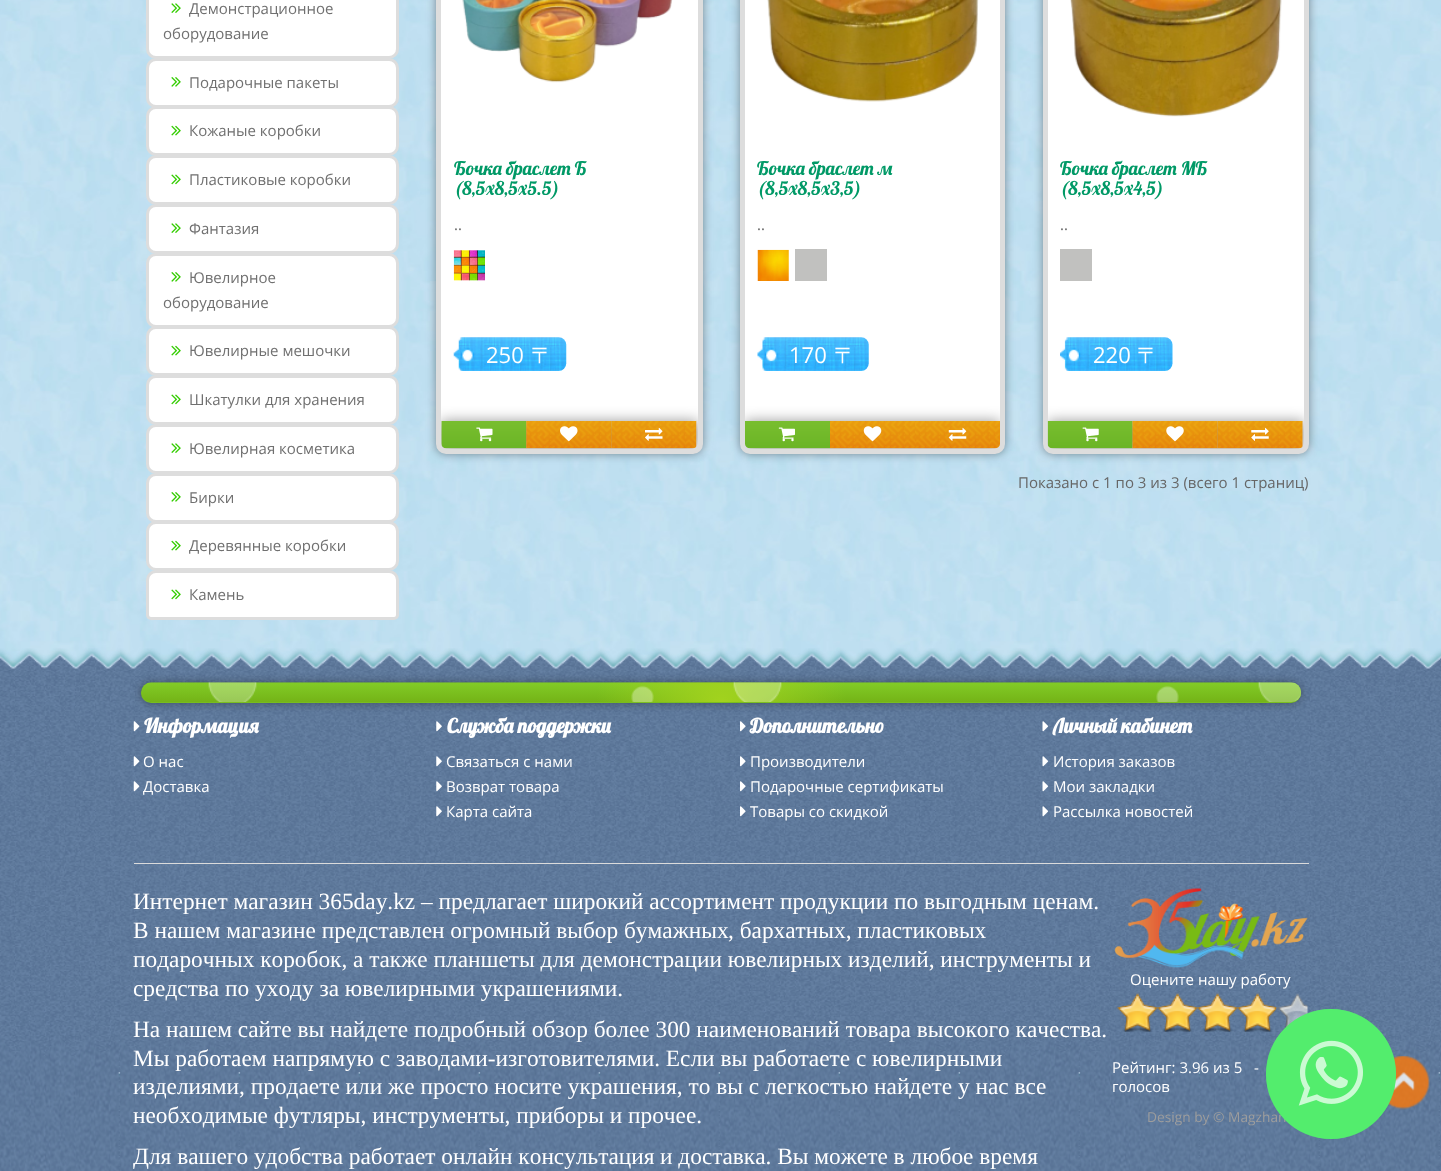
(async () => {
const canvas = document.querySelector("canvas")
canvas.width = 1441
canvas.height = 1171
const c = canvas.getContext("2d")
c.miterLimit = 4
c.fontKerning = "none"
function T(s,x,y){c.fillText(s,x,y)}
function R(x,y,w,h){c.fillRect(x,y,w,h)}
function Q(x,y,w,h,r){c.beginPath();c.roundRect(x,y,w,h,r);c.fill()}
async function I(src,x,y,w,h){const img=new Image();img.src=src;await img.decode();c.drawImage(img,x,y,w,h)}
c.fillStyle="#fff"
R(0,0,1441,1171)
await I("1.png",0,0,1441,668)
c.beginPath()
c.roundRect(147.5,-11.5,250,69,8.5)
c.fill()
c.strokeStyle="#ddd"
c.lineWidth=3
c.stroke()
await I("2.png",171,3,10,10)
c.font="15px Open Sans"
c.fillStyle="#707070"
T("Демонстрационное",189,14)
T("оборудование",163,39)
c.fillStyle="#fff"
c.beginPath()
c.roundRect(147.5,59.5,250,47,8.5)
c.fill()
c.stroke()
await I("3.png",171,77,10,10)
c.fillStyle="#707070"
T("Подарочные пакеты",189,88)
c.fillStyle="#fff"
c.beginPath()
c.roundRect(147.5,107.5,250,47,8.5)
c.fill()
c.stroke()
await I("4.png",171,125,10,11)
c.fillStyle="#707070"
T("Кожаные коробки",189,136)
c.fillStyle="#fff"
c.beginPath()
c.roundRect(147.5,156.5,250,47,8.5)
c.fill()
c.stroke()
await I("5.png",171,174,10,11)
c.fillStyle="#707070"
T("Пластиковые коробки",189,185)
c.fillStyle="#fff"
c.beginPath()
c.roundRect(147.5,205.5,250,47,8.5)
c.fill()
c.stroke()
await I("2.png",171,223,10,10)
c.fillStyle="#707070"
T("Фантазия",189,234)
c.fillStyle="#fff"
c.beginPath()
c.roundRect(147.5,254.5,250,72,8.5)
c.fill()
c.stroke()
await I("3.png",171,272,10,10)
c.fillStyle="#707070"
T("Ювелирное",189,283)
T("оборудование",163,308)
c.fillStyle="#fff"
c.beginPath()
c.roundRect(147.5,327.5,250,47,8.5)
c.fill()
c.stroke()
await I("4.png",171,345,10,11)
c.fillStyle="#707070"
T("Ювелирные мешочки",189,356)
c.fillStyle="#fff"
c.beginPath()
c.roundRect(147.5,376.5,250,47,8.5)
c.fill()
c.stroke()
await I("5.png",171,394,10,11)
c.fillStyle="#707070"
T("Шкатулки для хранения",189,405)
c.fillStyle="#fff"
c.beginPath()
c.roundRect(147.5,425.5,250,47,8.5)
c.fill()
c.stroke()
await I("2.png",171,443,10,10)
c.fillStyle="#707070"
T("Ювелирная косметика",189,454)
c.fillStyle="#fff"
c.beginPath()
c.roundRect(147.5,474.5,250,47,8.5)
c.fill()
c.stroke()
await I("3.png",171,492,10,10)
c.fillStyle="#707070"
T("Бирки",189,503)
c.fillStyle="#fff"
c.beginPath()
c.roundRect(147.5,522.5,250,47,8.5)
c.fill()
c.stroke()
await I("4.png",171,540,10,11)
c.fillStyle="#707070"
T("Деревянные коробки",189,551)
c.fillStyle="#fff"
c.beginPath()
c.roundRect(147.5,571.5,250,47,[8.5,8.5,3.5,3.5])
c.fill()
c.stroke()
await I("5.png",171,589,10,11)
c.fillStyle="#707070"
T("Камень",189,600)
c.fillStyle="#00000066"
c.filter="blur(5px)"
c.beginPath()
c.roundRect(436,-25,267,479,10)
c.fill()
c.filter="none"
c.fillStyle="#fff"
c.beginPath()
c.roundRect(438.5,-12.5,262,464,7.5)
c.fill()
c.lineWidth=5
c.stroke()
await I("6.png",462,0,211,83)
c.font="18.75px Lobster"
c.fillStyle="#096"
T("Бочка браслет Б",454,175)
T("(8,5х8,5х5.5)",454,195)
c.font="15px Open Sans"
c.fillStyle="#666"
T("..",454,230)
await I("7.png",453,250,32,31)
await I("8.png",453,337,114,34)
c.font="22px Open Sans"
c.fillStyle="#fff"
T("250",486,363)
c.font="500 22px WenQuanYi Zen Hei"
T("〒",531,363)
c.save()
c.beginPath()
c.roundRect(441,-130,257,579,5)
c.clip()
c.fillStyle="#00000066"
c.filter="blur(7px)"
c.beginPath()
c.rect(441,421,257,28)
c.fill()
c.filter="none"
c.restore()
await I("9.png",441,421,86,28)
await I("10.png",476,427,17,15)
await I("11.png",526,421,86,28)
await I("12.png",560,426,18,16)
await I("13.png",611,421,86,28)
await I("14.png",645,427,18,14)
c.fillStyle="#00000066"
c.filter="blur(5px)"
c.beginPath()
c.roundRect(740,-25,265,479,10)
c.fill()
c.filter="none"
c.fillStyle="#fff"
c.beginPath()
c.roundRect(742.5,-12.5,260,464,7.5)
c.fill()
c.stroke()
await I("15.png",767,0,212,102)
c.font="18.75px Lobster"
c.fillStyle="#096"
T("Бочка браслет м",757,175)
T("(8,5х8,5х3,5)",757,195)
c.font="15px Open Sans"
c.fillStyle="#666"
T("..",757,230)
await I("16.png",757,249,32,32)
c.fillStyle="#c1c1bf"
R(795,249,32,32)
await I("17.png",757,337,112,34)
c.font="22px Open Sans"
c.fillStyle="#fff"
T("170",789,363)
c.font="500 22px WenQuanYi Zen Hei"
T("〒",834,363)
c.save()
c.beginPath()
c.roundRect(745,-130,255,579,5)
c.clip()
c.fillStyle="#00000066"
c.filter="blur(7px)"
c.beginPath()
c.rect(745,421,255,28)
c.fill()
c.filter="none"
c.restore()
await I("18.png",745,421,85,28)
await I("19.png",778,427,17,15)
await I("20.png",830,421,85,28)
await I("21.png",863,426,19,16)
await I("22.png",915,421,85,28)
await I("23.png",948,427,19,14)
c.fillStyle="#00000066"
c.filter="blur(5px)"
c.beginPath()
c.roundRect(1043,-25,266,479,10)
c.fill()
c.filter="none"
c.fillStyle="#fff"
c.beginPath()
c.roundRect(1045.5,-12.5,261,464,7.5)
c.fill()
c.stroke()
await I("24.png",1070,0,212,117)
c.font="18.75px Lobster"
c.fillStyle="#096"
T("Бочка браслет МБ",1060,175)
T("(8,5х8,5х4,5)",1060,195)
c.font="15px Open Sans"
c.fillStyle="#666"
T("..",1060,230)
c.fillStyle="#c1c1bf"
R(1060,249,32,32)
await I("25.png",1060,337,113,34)
c.font="22px Open Sans"
c.fillStyle="#fff"
T("220",1093,363)
c.font="500 22px WenQuanYi Zen Hei"
T("〒",1137,363)
c.save()
c.beginPath()
c.roundRect(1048,-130,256,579,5)
c.clip()
c.fillStyle="#00000066"
c.filter="blur(7px)"
c.beginPath()
c.rect(1048,421,256,28)
c.fill()
c.filter="none"
c.restore()
await I("26.png",1047,421,86,28)
await I("27.png",1082,427,17,15)
await I("28.png",1132,421,86,28)
await I("29.png",1166,426,18,16)
await I("30.png",1217,421,86,28)
await I("31.png",1251,427,18,14)
c.font="15px Open Sans"
c.fillStyle="#666"
T("Показано с 1 по 3 из 3 (всего 1 страниц)",1018,488)
await I("32.png",0,648,1441,523)
c.fillStyle="#00000066"
c.filter="blur(5px)"
c.beginPath()
c.roundRect(141,683,1160,20,10)
c.fill()
c.filter="none"
c.fillStyle="#79be1e"
Q(141,683,1160,20,10)
await I("33.png",141,682,1161,21)
await I("34.png",133,721,7,11)
c.font="bold 20px Lobster"
c.fillStyle="#fff"
T("Информация",144,733)
await I("35.png",133,756,7,11)
c.font="15px Open Sans"
T("О нас",143,767)
await I("36.png",133,781,7,11)
T("Доставка",143,792)
await I("37.png",436,721,6,11)
c.font="bold 20px Lobster"
T("Служба поддержки",447,733)
await I("38.png",436,756,6,11)
c.font="15px Open Sans"
T("Связаться с нами",446,767)
await I("39.png",436,781,6,11)
T("Возврат товара",446,792)
await I("40.png",436,806,6,11)
T("Карта сайта",446,817)
await I("41.png",740,721,6,11)
c.font="bold 20px Lobster"
T("Дополнительно",750,733)
await I("42.png",740,756,6,11)
c.font="15px Open Sans"
T("Производители",750,767)
await I("43.png",740,781,6,11)
T("Подарочные сертификаты",750,792)
await I("44.png",740,806,6,11)
T("Товары со скидкой",750,817)
await I("45.png",1042,721,7,11)
c.font="bold 20px Lobster"
T("Личный кабинет",1053,733)
await I("46.png",1042,756,7,11)
c.font="15px Open Sans"
T("История заказов",1053,767)
await I("47.png",1042,781,7,11)
T("Мои закладки",1053,792)
await I("48.png",1042,806,7,11)
T("Рассылка новостей",1053,817)
c.fillStyle="#dbdbdb"
R(134,863,1175,1)
c.font="23.35px Liberation Serif"
c.fillStyle="#fff"
T("Интернет магазин 365day.kz – предлагает широкий ассортимент продукции по выгодным ценам.",133,909)
T("В нашем магазине представлен огромный выбор бумажных",133,938)
T(", бархатных, пластиковых",728,938)
T("подарочных коробок, а также планшеты для демонстрации ювелирных изделий, инструменты и",133,967)
T("средства по уходу за ювелирными украшениями.",133,996)
T("На нашем сайте вы найдете подробный обзор более 300 наименований товара высокого качества.",133,1037)
T("Мы работаем напрямую с заводами-изготовителями. Если вы работаете с ювелирными",133,1066)
T("изделиями, продаете или же просто носите украшения, то вы с легкостью найдете у нас все",133,1094)
T("необходимые футляры, инструменты, приборы и прочее.",133,1123)
T("Для вашего удобства работает онлайн консультация",133,1164)
T("и доставка. Вы можете в любое время",660,1164)
await I("49.png",1112,888,196,80)
c.font="15px Open Sans"
T("Оцените нашу работу",1130,985)
await I("50.png",1117,993,191,39)
await I("51.png",1117,993,160,39)
T("Рейтинг: 3.96 из 5",1112,1073)
T("-",1254,1073)
T("голосов",1112,1092)
c.font="13.75px Open Sans"
c.fillStyle="#9d9d9d"
T("Design by © Magzhan",1147,1122)
await I("53.png",1388,1056,42,54)
c.beginPath()
c.arc(1331,1074,63.5,0,7)
c.strokeStyle="#53ed6d80"
c.lineWidth=3
c.stroke()
c.fillStyle="#53ed6d"
c.beginPath()
c.arc(1331,1074,65,0,7)
c.fill()
await I("52.png",1298,1040,65,66)
})()
